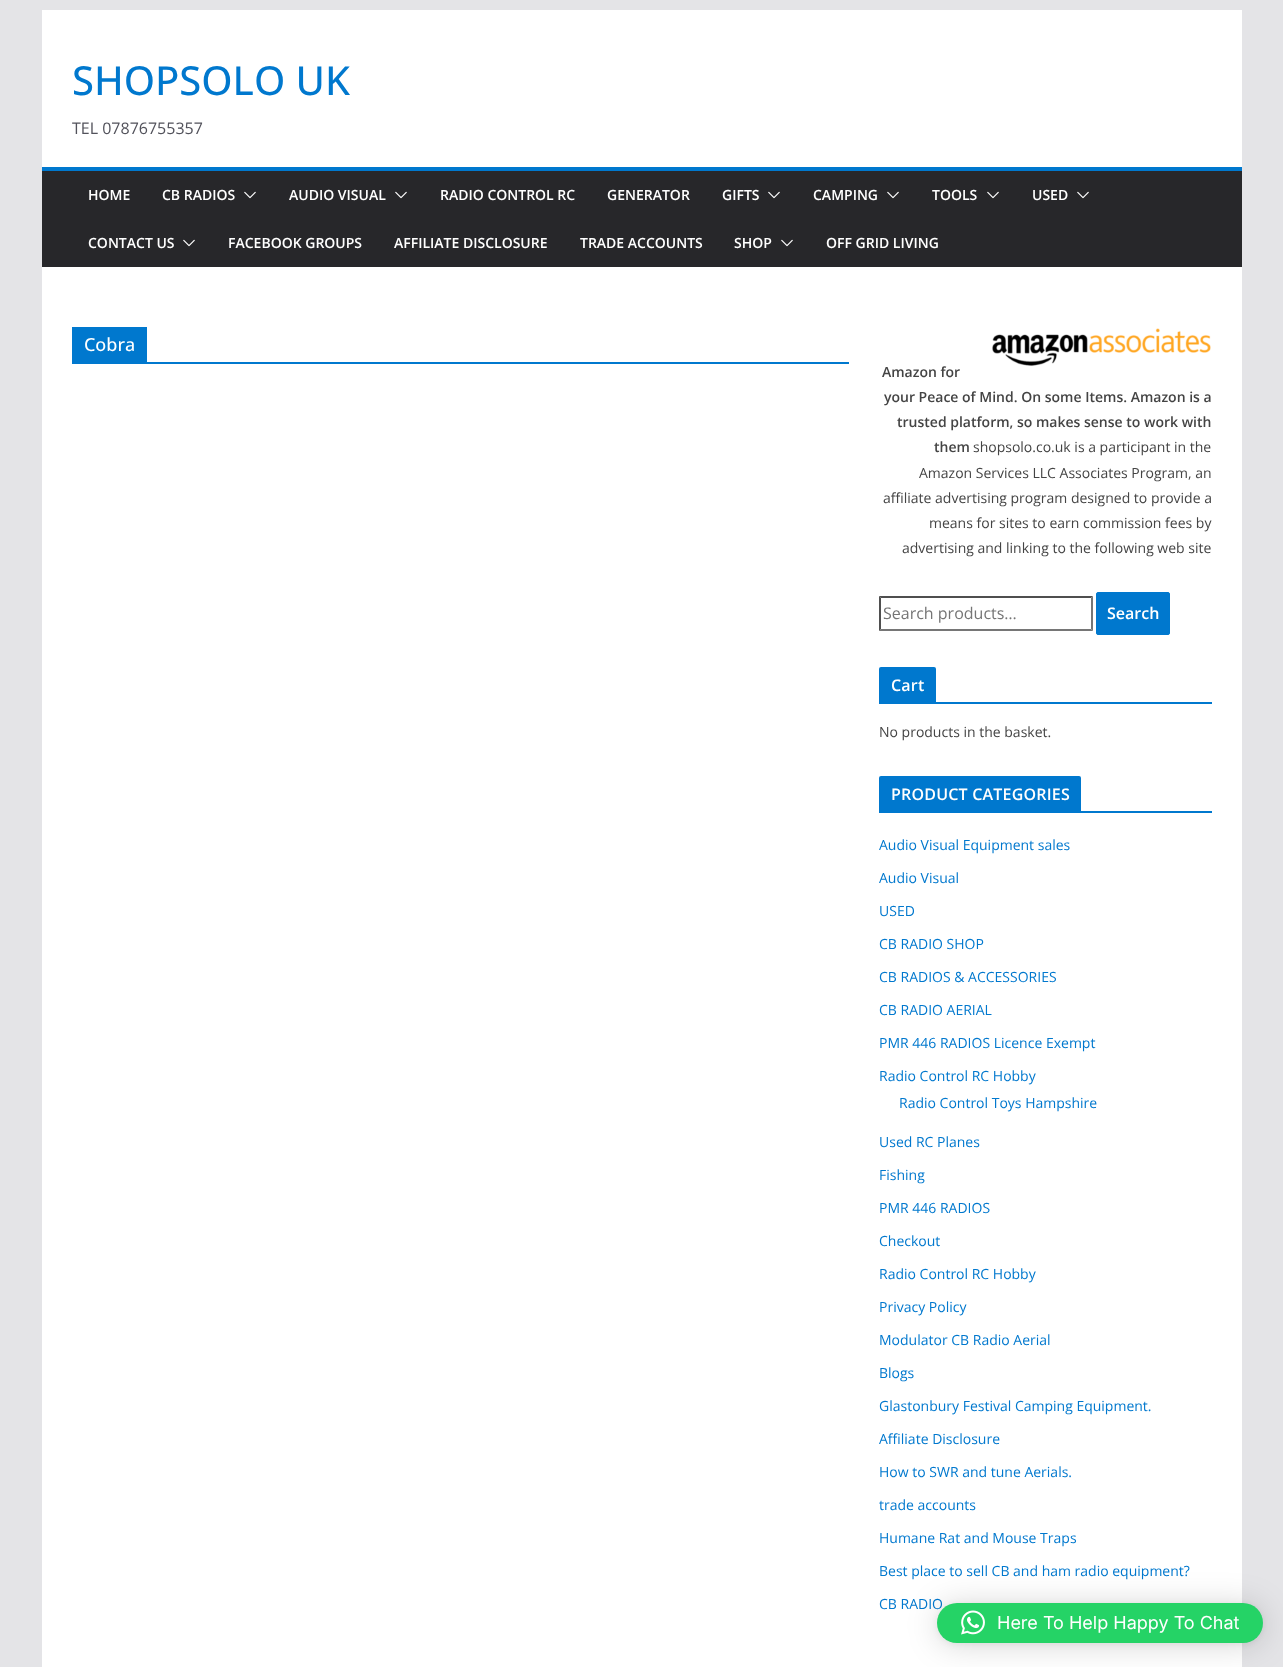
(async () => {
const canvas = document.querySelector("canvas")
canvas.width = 1283
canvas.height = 1667
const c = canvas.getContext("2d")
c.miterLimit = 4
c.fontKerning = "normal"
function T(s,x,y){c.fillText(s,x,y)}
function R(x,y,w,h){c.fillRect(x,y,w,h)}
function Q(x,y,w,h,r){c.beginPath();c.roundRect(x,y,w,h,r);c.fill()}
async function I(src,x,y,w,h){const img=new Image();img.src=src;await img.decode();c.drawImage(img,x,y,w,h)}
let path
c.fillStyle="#e4e4e7"
R(0,0,1283,1667)
c.fillStyle="#fff"
R(42,10,1200,157)
c.font="500 40px Open Sans"
c.fillStyle="#0078ce"
T("SHOPSOLO UK",72,95)
c.font="16px Open Sans"
c.fillStyle="#52525b"
T("TEL 07876755357",72,134)
c.fillStyle="#27272a"
R(42,171,1200,96)
c.fillStyle="#0078ce"
R(42,167,1200,4)
c.font="600 14px Open Sans"
c.fillStyle="#fff"
T("HOME",88,200)
T("CB RADIOS",162,200)
await I("1.png",244,191,12,8)
T("AUDIO VISUAL",289,200)
await I("1.png",395,191,12,8)
T("RADIO CONTROL RC",440,200)
T("GENERATOR",607,200)
T("GIFTS",722,200)
await I("1.png",768,191,12,8)
T("CAMPING",813,200)
await I("1.png",887,191,12,8)
T("TOOLS",932,200)
await I("1.png",987,191,12,8)
T("USED",1032,200)
await I("1.png",1077,191,12,8)
T("CONTACT US",88,248)
await I("1.png",183,239,12,8)
T("FACEBOOK GROUPS",228,248)
T("AFFILIATE DISCLOSURE",394,248)
T("TRADE ACCOUNTS",580,248)
T("SHOP",734,248)
await I("1.png",781,239,12,8)
T("OFF GRID LIVING",826,248)
R(42,267,1200,1400)
c.fillStyle="#0078ce"
R(72,362,777,2)
R(72,327,75,35)
c.font="500 18px Open Sans"
c.fillStyle="#fff"
T("Cobra",84,351)
await I("2.png",991,327,221,41)
c.font="600 14px Open Sans"
c.fillStyle="#444"
T("Amazon for",882,377)
T("your Peace of Mind. On some Items. Amazon is a",884,402)
T("trusted platform, so makes sense to work with",897,427)
T("them",934,452)
c.font="14px Open Sans"
T("shopsolo.co.uk is a participant in the",973,452)
T("Amazon Services LLC Associates Program, an",919,478)
T("affiliate advertising program designed to provide a",883,503)
T("means for sites to earn commission fees by",929,528)
T("advertising and linking to the following web site",902,553)
c.fillStyle="#4f4f4f"
path = new Path2D("M879 596h214l-2 2h-210z")
c.fill(path)
c.fillStyle="#767676"
path = new Path2D("M1093 596v35l-2-2v-31z")
c.fill(path)
path = new Path2D("M1093 631h-214l2-2h210z")
c.fill(path)
c.fillStyle="#4f4f4f"
path = new Path2D("M879 631v-35l2 2v31z")
c.fill(path)
c.font="16px Open Sans"
c.fillStyle="#757575"
T("Search products…",883,619)
c.fillStyle="#0078ce"
c.beginPath()
c.roundRect(1096.5,592.5,73,42,1.5)
c.fill()
c.strokeStyle="#0078ce"
c.stroke()
c.font="600 16px Open Sans"
c.fillStyle="#fff"
T("Search",1107,619)
c.fillStyle="#0078ce"
R(879,702,333,2)
c.beginPath()
c.roundRect(879,667,57,35,[2,2,0,0])
c.fill()
c.letterSpacing="0.2px"
c.fillStyle="#fff"
T("Cart",891,691)
c.letterSpacing="0px"
c.font="14px Open Sans"
c.fillStyle="#444"
T("No products in the basket.",879,737)
c.fillStyle="#0078ce"
R(879,811,333,2)
c.beginPath()
c.roundRect(879,776,202,35,[2,2,0,0])
c.fill()
c.letterSpacing="0.2px"
c.font="600 16px Open Sans"
c.fillStyle="#fff"
T("PRODUCT CATEGORIES",891,800)
c.letterSpacing="0px"
c.font="14px Open Sans"
c.fillStyle="#0078ce"
T("Audio Visual Equipment sales",879,850)
T("Audio Visual",879,883)
T("USED",879,916)
T("CB RADIO SHOP",879,949)
T("CB RADIOS & ACCESSORIES",879,982)
T("CB RADIO AERIAL",879,1015)
T("PMR 446 RADIOS Licence Exempt",879,1048)
T("Radio Control RC Hobby",879,1081)
T("Radio Control Toys Hampshire",899,1108)
T("Used RC Planes",879,1147)
T("Fishing",879,1180)
T("PMR 446 RADIOS",879,1213)
T("Checkout",879,1246)
T("Radio Control RC Hobby",879,1279)
T("Privacy Policy",879,1312)
T("Modulator CB Radio Aerial",879,1345)
T("Blogs",879,1378)
T("Glastonbury Festival Camping Equipment.",879,1411)
T("Affiliate Disclosure",879,1444)
T("How to SWR and tune Aerials.",879,1477)
T("trade accounts",879,1510)
T("Humane Rat and Mouse Traps",879,1543)
T("Best place to sell CB and ham radio equipment?",879,1576)
T("CB RADIO",879,1609)
c.fillStyle="#00000029"
c.filter="blur(16px)"
c.beginPath()
c.roundRect(937,1605,326,40,20)
c.fill()
c.filter="none"
c.fillStyle="#0000000f"
c.filter="blur(3px)"
c.beginPath()
c.roundRect(937,1604,326,40,20)
c.fill()
c.filter="none"
c.fillStyle="#25d366"
Q(937,1603,326,40,20)
await I("3.png",961,1610,24,25)
c.font="18px Inter"
c.fillStyle="#fff"
T("Here To Help Happy To Chat",997,1629)
})()
